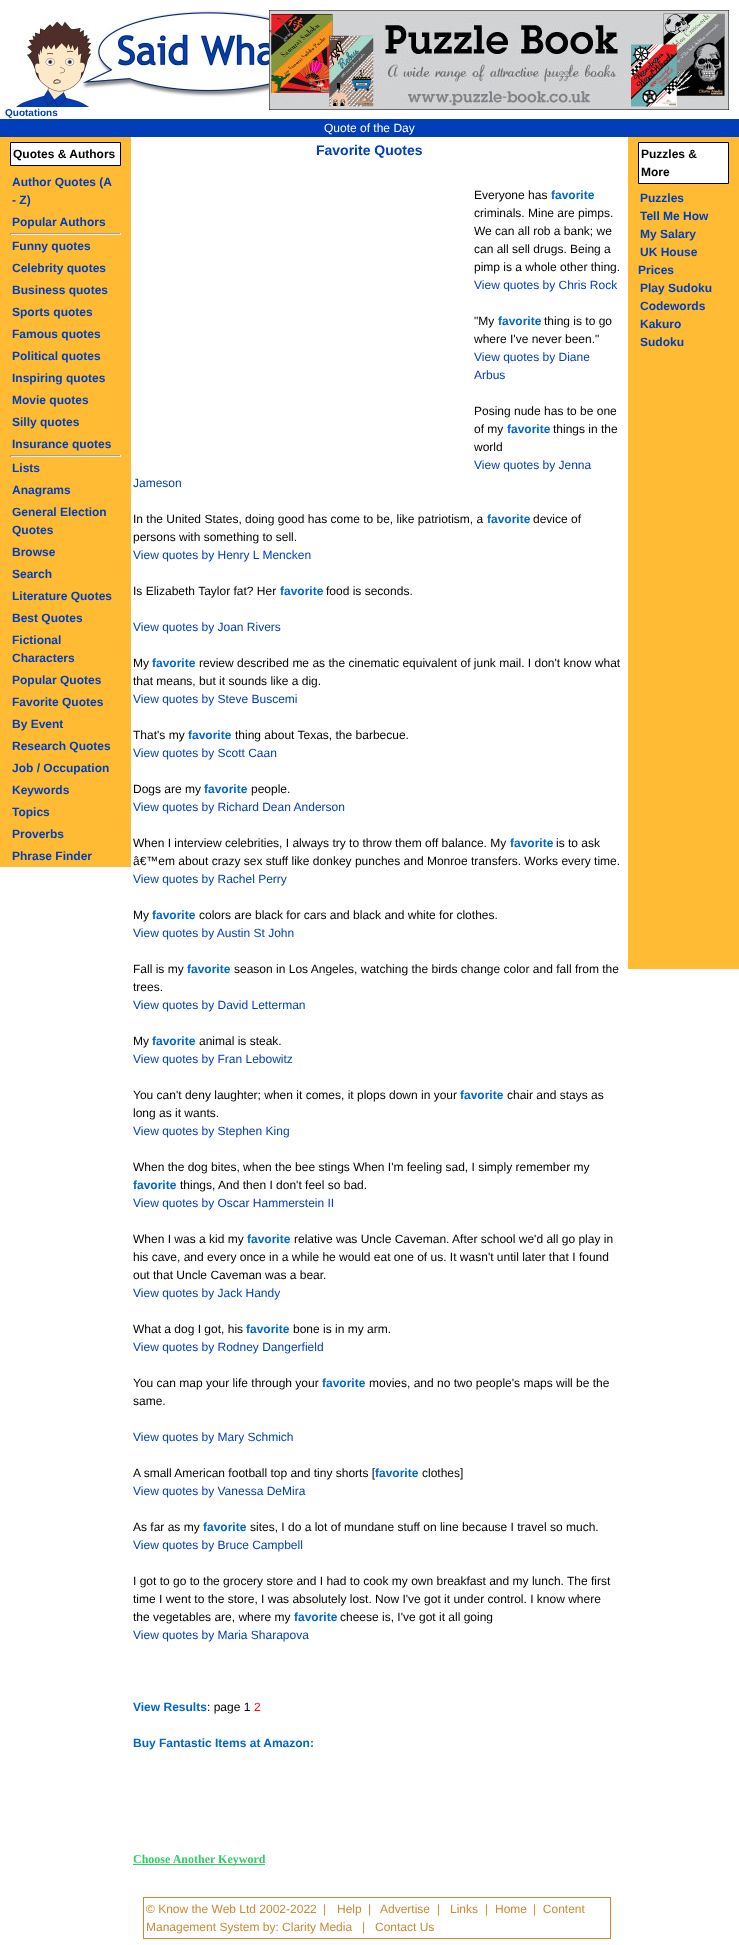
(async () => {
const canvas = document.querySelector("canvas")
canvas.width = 739
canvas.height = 1945
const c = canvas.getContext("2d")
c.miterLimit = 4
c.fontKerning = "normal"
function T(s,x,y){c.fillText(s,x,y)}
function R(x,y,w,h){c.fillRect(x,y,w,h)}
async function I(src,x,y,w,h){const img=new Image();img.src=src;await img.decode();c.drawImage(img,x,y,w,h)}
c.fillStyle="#fff"
R(0,0,739,1945)
await I("1.png",269,10,460,100)
await I("2.png",13,10,256,97)
c.font="bold 10px Liberation Sans"
c.fillStyle="#003eba"
T("Quotations",5,116)
R(0,119,739,18)
c.font="12px Liberation Sans"
c.fillStyle="#fff"
T("Quote of the Day",324,132)
c.fillStyle="#fb3"
R(0,137,131,730)
c.fillStyle="#fff"
c.beginPath()
c.rect(10.5,142.5,110,23)
c.fill()
c.strokeStyle="#000"
c.stroke()
c.font="bold 12px Liberation Sans"
c.fillStyle="#000"
T("Quotes & Authors",13,158)
c.fillStyle="#003eba"
T("Author Quotes (A",12,186)
T("- Z)",12,204)
T("Popular Authors",12,226)
c.fillStyle="#9f9f9f"
R(10,233,111,1)
c.fillStyle="#eee"
R(120,233,1,2)
R(10,234,111,1)
c.fillStyle="#9f9f9f"
R(10,233,1,2)
c.fillStyle="#003eba"
T("Funny quotes",12,250)
T("Celebrity quotes",12,272)
T("Business quotes",12,294)
T("Sports quotes",12,316)
T("Famous quotes",12,338)
T("Political quotes",12,360)
T("Inspiring quotes",12,382)
T("Movie quotes",12,404)
T("Silly quotes",12,426)
T("Insurance quotes",12,448)
c.fillStyle="#9f9f9f"
R(10,455,111,1)
c.fillStyle="#eee"
R(120,455,1,2)
R(10,456,111,1)
c.fillStyle="#9f9f9f"
R(10,455,1,2)
c.fillStyle="#003eba"
T("Lists",12,472)
T("Anagrams",12,494)
T("General Election",12,516)
T("Quotes",12,534)
T("Browse",12,556)
T("Search",12,578)
T("Literature Quotes",12,600)
T("Best Quotes",12,622)
T("Fictional",12,644)
T("Characters",12,662)
T("Popular Quotes",12,684)
T("Favorite Quotes",12,706)
T("By Event",12,728)
T("Research Quotes",12,750)
T("Job / Occupation",12,772)
T("Keywords",12,794)
T("Topics",12,816)
T("Proverbs",12,838)
T("Phrase Finder",12,860)
c.font="bold 14px Liberation Sans"
T("Favorite Quotes",316,155)
c.fillStyle="#fb3"
R(628,137,111,832)
c.fillStyle="#fff"
c.beginPath()
c.rect(638.5,142.5,90,41)
c.fill()
c.stroke()
c.font="bold 12px Liberation Sans"
c.fillStyle="#000"
T("Puzzles &",641,158)
T("More",641,176)
c.fillStyle="#003eba"
T("Puzzles",640,202)
T("Tell Me How",640,220)
T("My Salary",640,238)
T("UK House",640,256)
T("Prices",638,274)
T("Play Sudoku",640,292)
T("Codewords",640,310)
T("Kakuro",640,328)
T("Sudoku",640,346)
c.font="12px Liberation Sans"
c.fillStyle="#000"
T("Everyone has",474,199)
c.font="bold 12px Liberation Sans"
c.fillStyle="#06c"
T("favorite",551,199)
c.font="12px Liberation Sans"
c.fillStyle="#000"
T("criminals. Mine are pimps.",474,217)
T("We can all rob a bank; we",474,235)
T("can all sell drugs. Being a",474,253)
T("pimp is a whole other thing.",474,271)
c.fillStyle="#003eba"
T("View quotes by Chris Rock",474,289)
c.fillStyle="#000"
T("\"My",474,325)
c.font="bold 12px Liberation Sans"
c.fillStyle="#06c"
T("favorite",498,325)
c.font="12px Liberation Sans"
c.fillStyle="#000"
T("thing is to go",544,325)
T("where I've never been.\"",474,343)
c.fillStyle="#003eba"
T("View quotes by Diane",474,361)
T("Arbus",474,379)
c.fillStyle="#000"
T("Posing nude has to be one",474,415)
T("of my",474,433)
c.font="bold 12px Liberation Sans"
c.fillStyle="#06c"
T("favorite",507,433)
c.font="12px Liberation Sans"
c.fillStyle="#000"
T("things in the",553,433)
T("world",474,451)
c.fillStyle="#003eba"
T("View quotes by Jenna",474,469)
T("Jameson",133,487)
c.fillStyle="#000"
T("In the United States, doing good has come to be, like patriotism, a",133,523)
c.font="bold 12px Liberation Sans"
c.fillStyle="#06c"
T("favorite",487,523)
c.font="12px Liberation Sans"
c.fillStyle="#000"
T("device of",533,523)
T("persons with something to sell.",133,541)
c.fillStyle="#003eba"
T("View quotes by Henry L Mencken",133,559)
c.fillStyle="#000"
T("Is Elizabeth Taylor fat? Her",133,595)
c.font="bold 12px Liberation Sans"
c.fillStyle="#06c"
T("favorite",280,595)
c.font="12px Liberation Sans"
c.fillStyle="#000"
T("food is seconds.",326,595)
c.fillStyle="#003eba"
T("View quotes by Joan Rivers",133,631)
c.fillStyle="#000"
T("My",133,667)
c.font="bold 12px Liberation Sans"
c.fillStyle="#06c"
T("favorite",152,667)
c.font="12px Liberation Sans"
c.fillStyle="#000"
T("review described me as the cinematic equivalent of junk mail. I don't know what",199,667)
T("that means, but it sounds like a dig.",133,685)
c.fillStyle="#003eba"
T("View quotes by Steve Buscemi",133,703)
c.fillStyle="#000"
T("That's my",133,739)
c.font="bold 12px Liberation Sans"
c.fillStyle="#06c"
T("favorite",188,739)
c.font="12px Liberation Sans"
c.fillStyle="#000"
T("thing about Texas, the barbecue.",235,739)
c.fillStyle="#003eba"
T("View quotes by Scott Caan",133,757)
c.fillStyle="#000"
T("Dogs are my",133,793)
c.font="bold 12px Liberation Sans"
c.fillStyle="#06c"
T("favorite",204,793)
c.font="12px Liberation Sans"
c.fillStyle="#000"
T("people.",251,793)
c.fillStyle="#003eba"
T("View quotes by Richard Dean Anderson",133,811)
c.fillStyle="#000"
T("When I interview celebrities, I always try to throw them off balance. My",133,847)
c.font="bold 12px Liberation Sans"
c.fillStyle="#06c"
T("favorite",510,847)
c.font="12px Liberation Sans"
c.fillStyle="#000"
T("is to ask",556,847)
T("â€™em about crazy sex stuff like donkey punches and Monroe transfers. Works every time.",133,865)
c.fillStyle="#003eba"
T("View quotes by Rachel Perry",133,883)
c.fillStyle="#000"
T("My",133,919)
c.font="bold 12px Liberation Sans"
c.fillStyle="#06c"
T("favorite",152,919)
c.font="12px Liberation Sans"
c.fillStyle="#000"
T("colors are black for cars and black and white for clothes.",199,919)
c.fillStyle="#003eba"
T("View quotes by Austin St John",133,937)
c.fillStyle="#000"
T("Fall is my",133,973)
c.font="bold 12px Liberation Sans"
c.fillStyle="#06c"
T("favorite",187,973)
c.font="12px Liberation Sans"
c.fillStyle="#000"
T("season in Los Angeles, watching the birds change color and fall from the",234,973)
T("trees.",133,991)
c.fillStyle="#003eba"
T("View quotes by David Letterman",133,1009)
c.fillStyle="#000"
T("My",133,1045)
c.font="bold 12px Liberation Sans"
c.fillStyle="#06c"
T("favorite",152,1045)
c.font="12px Liberation Sans"
c.fillStyle="#000"
T("animal is steak.",199,1045)
c.fillStyle="#003eba"
T("View quotes by Fran Lebowitz",133,1063)
c.fillStyle="#000"
T("You can't deny laughter; when it comes, it plops down in your",133,1099)
c.font="bold 12px Liberation Sans"
c.fillStyle="#06c"
T("favorite",460,1099)
c.font="12px Liberation Sans"
c.fillStyle="#000"
T("chair and stays as",507,1099)
T("long as it wants.",133,1117)
c.fillStyle="#003eba"
T("View quotes by Stephen King",133,1135)
c.fillStyle="#000"
T("When the dog bites, when the bee stings When I'm feeling sad, I simply remember my",133,1171)
c.font="bold 12px Liberation Sans"
c.fillStyle="#06c"
T("favorite",133,1189)
c.font="12px Liberation Sans"
c.fillStyle="#000"
T("things, And then I don't feel so bad.",180,1189)
c.fillStyle="#003eba"
T("View quotes by Oscar Hammerstein II",133,1207)
c.fillStyle="#000"
T("When I was a kid my",133,1243)
c.font="bold 12px Liberation Sans"
c.fillStyle="#06c"
T("favorite",247,1243)
c.font="12px Liberation Sans"
c.fillStyle="#000"
T("relative was Uncle Caveman. After school we'd all go play in",294,1243)
T("his cave, and every once in a while he would eat one of us. It wasn't until later that I found",133,1261)
T("out that Uncle Caveman was a bear.",133,1279)
c.fillStyle="#003eba"
T("View quotes by Jack Handy",133,1297)
c.fillStyle="#000"
T("What a dog I got, his",133,1333)
c.font="bold 12px Liberation Sans"
c.fillStyle="#06c"
T("favorite",246,1333)
c.font="12px Liberation Sans"
c.fillStyle="#000"
T("bone is in my arm.",293,1333)
c.fillStyle="#003eba"
T("View quotes by Rodney Dangerfield",133,1351)
c.fillStyle="#000"
T("You can map your life through your",133,1387)
c.font="bold 12px Liberation Sans"
c.fillStyle="#06c"
T("favorite",322,1387)
c.font="12px Liberation Sans"
c.fillStyle="#000"
T("movies, and no two people's maps will be the",369,1387)
T("same.",133,1405)
c.fillStyle="#003eba"
T("View quotes by Mary Schmich",133,1441)
c.fillStyle="#000"
T("A small American football top and tiny shorts [",133,1477)
c.font="bold 12px Liberation Sans"
c.fillStyle="#06c"
T("favorite",375,1477)
c.font="12px Liberation Sans"
c.fillStyle="#000"
T("clothes]",422,1477)
c.fillStyle="#003eba"
T("View quotes by Vanessa DeMira",133,1495)
c.fillStyle="#000"
T("As far as my",133,1531)
c.font="bold 12px Liberation Sans"
c.fillStyle="#06c"
T("favorite",203,1531)
c.font="12px Liberation Sans"
c.fillStyle="#000"
T("sites, I do a lot of mundane stuff on line because I travel so much.",250,1531)
c.fillStyle="#003eba"
T("View quotes by Bruce Campbell",133,1549)
c.fillStyle="#000"
T("I got to go to the grocery store and I had to cook my own breakfast and my lunch. The first",133,1585)
T("time I went to the store, I was absolutely lost. Now I've got it under control. I know where",133,1603)
T("the vegetables are, where my",133,1621)
c.font="bold 12px Liberation Sans"
c.fillStyle="#06c"
T("favorite",294,1621)
c.font="12px Liberation Sans"
c.fillStyle="#000"
T("cheese is, I've got it all going",340,1621)
c.fillStyle="#003eba"
T("View quotes by Maria Sharapova",133,1639)
c.font="bold 12px Liberation Sans"
c.fillStyle="#06c"
T("View Results",133,1711)
c.font="12px Liberation Sans"
c.fillStyle="#000"
T(": page 1",207,1711)
c.fillStyle="#f00"
T("2",254,1711)
c.font="bold 12px Liberation Sans"
c.fillStyle="#06c"
T("Buy Fantastic Items at Amazon:",133,1747)
c.fillStyle="#3c6"
R(133,1864,132,1)
c.font="bold 12px Liberation Serif"
T("Choose Another Keyword",133,1863)
c.strokeStyle="#c83"
c.strokeRect(143.5,1897.5,467,41)
c.font="12px Liberation Sans"
c.fillStyle="#c83"
T("© Know the Web Ltd 2002-2022",146,1913)
T("|",323,1913)
T("Help",337,1913)
T("|",368,1913)
T("Advertise",380,1913)
T("|",437,1913)
T("Links",450,1913)
T("|",485,1913)
T("Home",495,1913)
T("|  Content",533,1913)
T("Management System by: Clarity Media",146,1931)
T("|",362,1931)
T("Contact Us",375,1931)
})()
